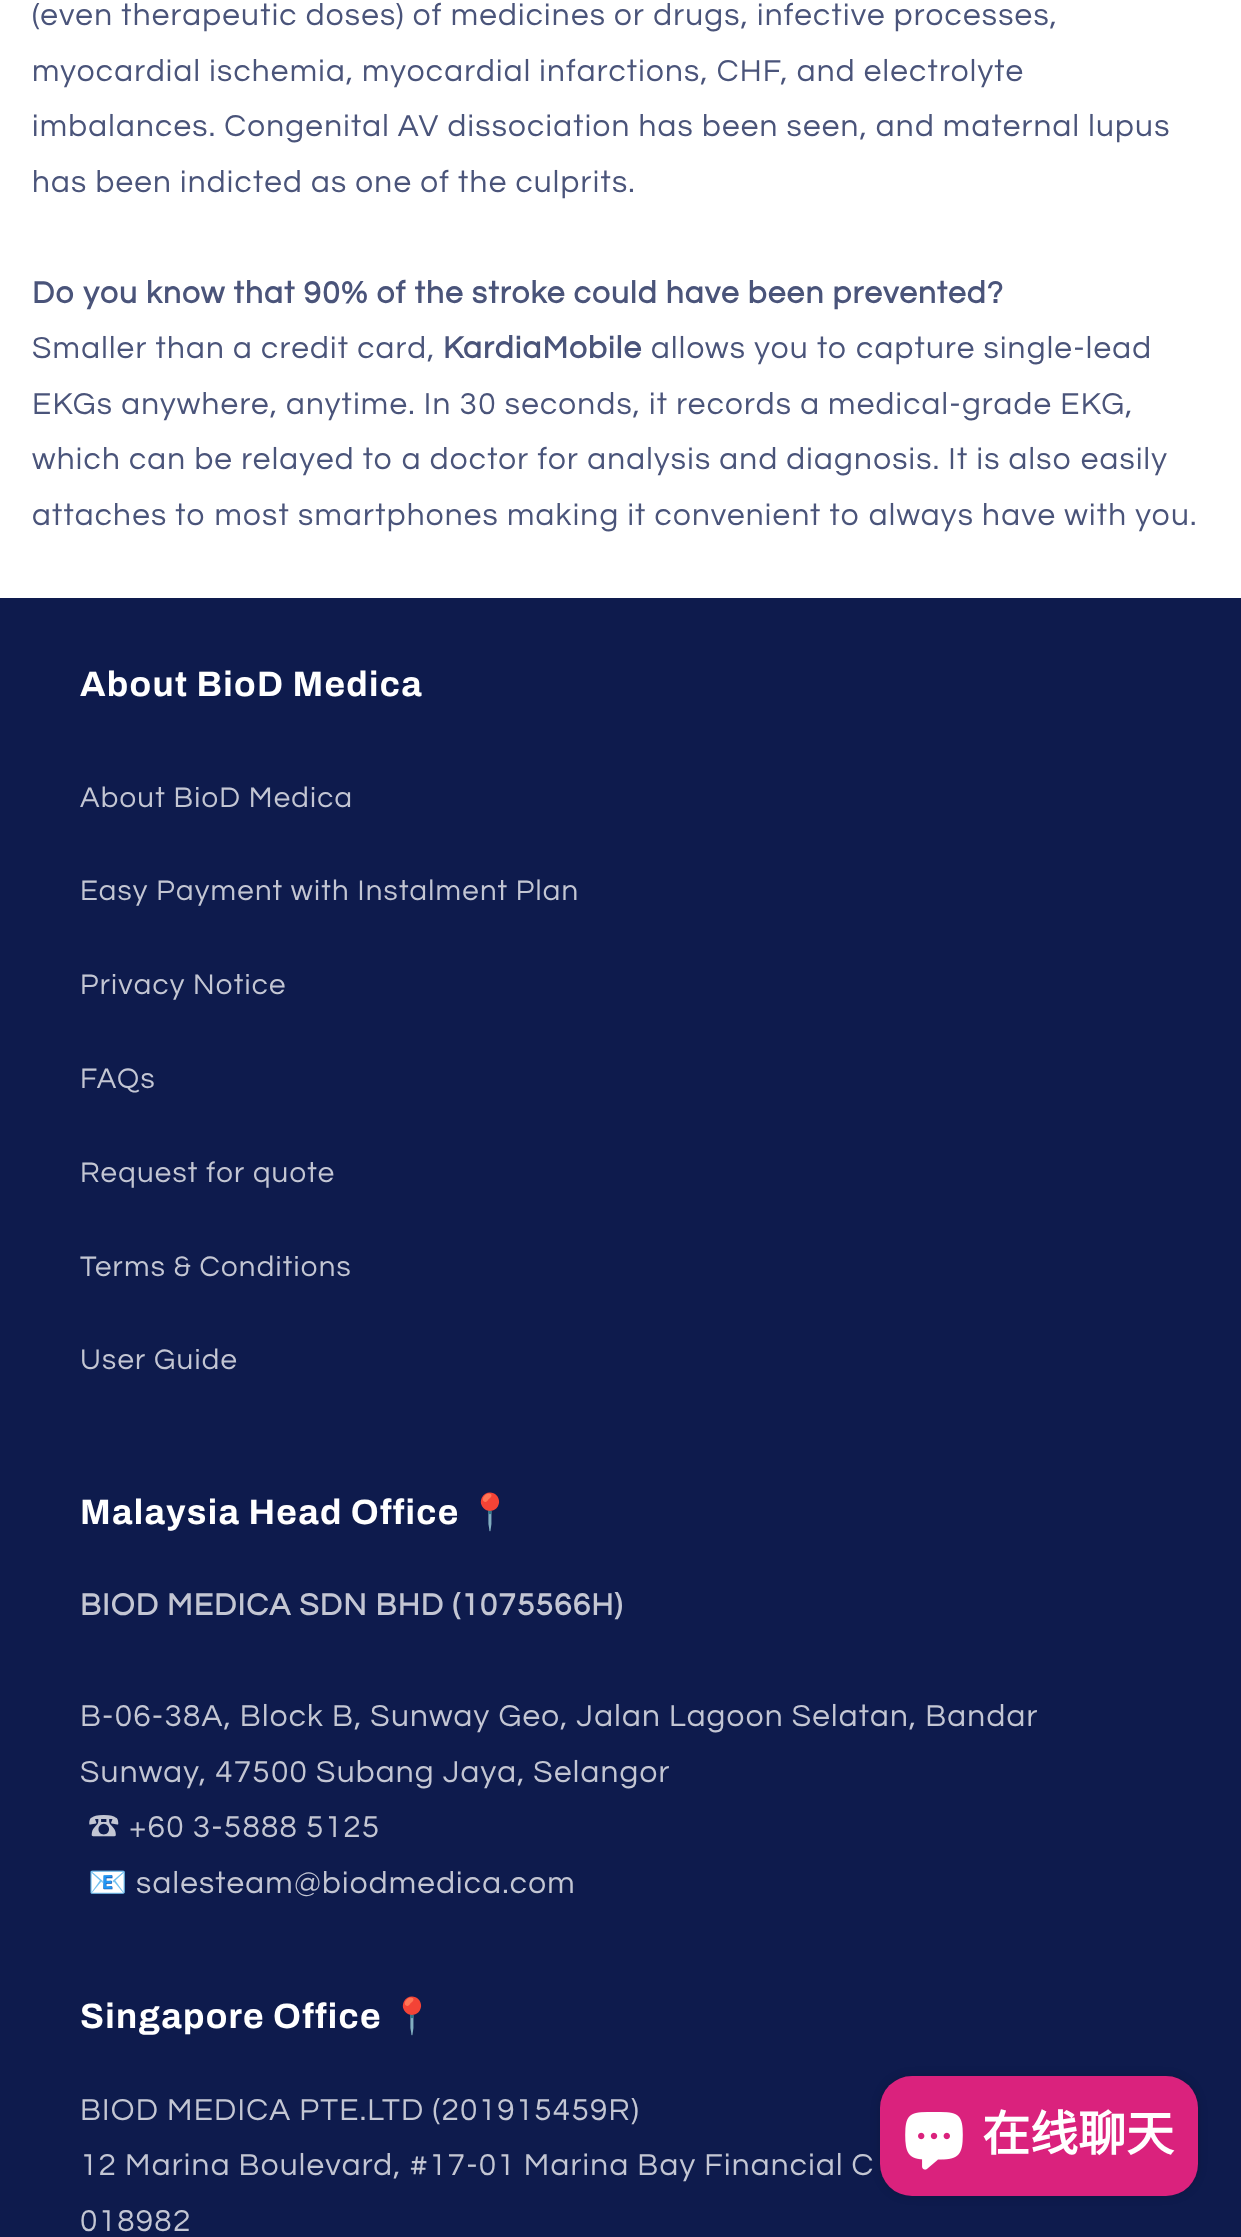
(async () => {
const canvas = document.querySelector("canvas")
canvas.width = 1241
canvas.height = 2237
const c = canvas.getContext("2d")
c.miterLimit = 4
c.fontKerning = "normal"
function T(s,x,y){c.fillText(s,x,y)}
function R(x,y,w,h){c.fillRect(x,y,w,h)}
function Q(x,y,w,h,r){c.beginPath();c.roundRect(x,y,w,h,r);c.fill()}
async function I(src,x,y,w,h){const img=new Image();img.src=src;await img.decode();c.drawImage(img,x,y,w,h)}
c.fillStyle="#fff"
R(0,0,1241,2237)
c.letterSpacing="1.25px"
c.font="31.5px Questrial"
c.fillStyle="#4a547a"
T("(even therapeutic doses) of medicines or drugs, infective processes,",32,25)
T("myocardial ischemia, myocardial infarctions, CHF, and electrolyte",32,81)
T("imbalances. Congenital AV dissociation has been seen, and maternal lupus",32,136)
T("has been indicted as one of the culprits.",32,192)
c.font="bold 31.5px Questrial"
T("Do you know that 90% of the stroke could have been prevented?",32,303)
c.font="31.5px Questrial"
T("Smaller than a credit card,",32,358)
c.font="bold 31.5px Questrial"
T("KardiaMobile",443,358)
c.font="31.5px Questrial"
T("allows you to capture single-lead",651,358)
T("EKGs anywhere, anytime. In 30 seconds, it records a medical-grade EKG,",32,414)
T("which can be relayed to a doctor for analysis and diagnosis. It is also easily",32,469)
T("attaches to most smartphones making it convenient to always have with you.",32,525)
c.fillStyle="#0e1b4d"
R(0,598,1241,1639)
c.letterSpacing="1.3px"
c.font="bold 35.25px Archivo"
c.fillStyle="#fff"
T("About BioD Medica",80,696)
c.letterSpacing="1.25px"
c.font="29.4px Questrial"
c.fillStyle="#c3c6d3"
T("About BioD Medica",80,807)
T("Easy Payment with Instalment Plan",80,900)
T("Privacy Notice",80,994)
T("FAQs",80,1088)
T("Request for quote",80,1182)
T("Terms & Conditions",80,1276)
T("User Guide",80,1369)
c.letterSpacing="1.3px"
c.font="bold 35.25px Archivo"
c.fillStyle="#fff"
T("Malaysia Head Office",80,1524)
c.font="bold 35.25px Noto Color Emoji"
T("📍",468,1524)
c.letterSpacing="1.25px"
c.font="bold 31.5px Questrial"
c.fillStyle="#c3c6d3"
T("BIOD MEDICA SDN BHD (1075566H)",80,1615)
c.font="31.5px Questrial"
T("B-06-38A, Block B, Sunway Geo, Jalan Lagoon Selatan, Bandar",80,1726)
T("Sunway, 47500 Subang Jaya, Selangor",80,1782)
c.font="31.5px Noto Sans CJK SC"
T("☎",88,1837)
c.font="31.5px Questrial"
T("+60 3-5888 5125",129,1837)
c.font="31.5px Noto Color Emoji"
T("📧",88,1893)
c.font="31.5px Questrial"
T("salesteam@biodmedica.com",136,1893)
c.letterSpacing="1.3px"
c.font="bold 35.25px Archivo"
c.fillStyle="#fff"
T("Singapore Office",80,2028)
c.font="bold 35.25px Noto Color Emoji"
T("📍",390,2028)
c.letterSpacing="1.25px"
c.font="31.5px Questrial"
c.fillStyle="#c3c6d3"
T("BIOD MEDICA PTE.LTD (201915459R)",80,2120)
T("12 Marina Boulevard, #17-01 Marina Bay Financial C",80,2175)
T("018982",80,2231)
c.fillStyle="#00000026"
c.filter="blur(5px)"
c.beginPath()
c.roundRect(880,2076,318,120,32)
c.fill()
c.filter="none"
c.fillStyle="#da227d"
Q(880,2076,318,120,32)
await I("1.png",905,2112,58,58)
c.letterSpacing="0px"
c.font="bold 48px Noto Sans CJK SC"
c.fillStyle="#fff"
T("在线聊天",982,2151)
})()
